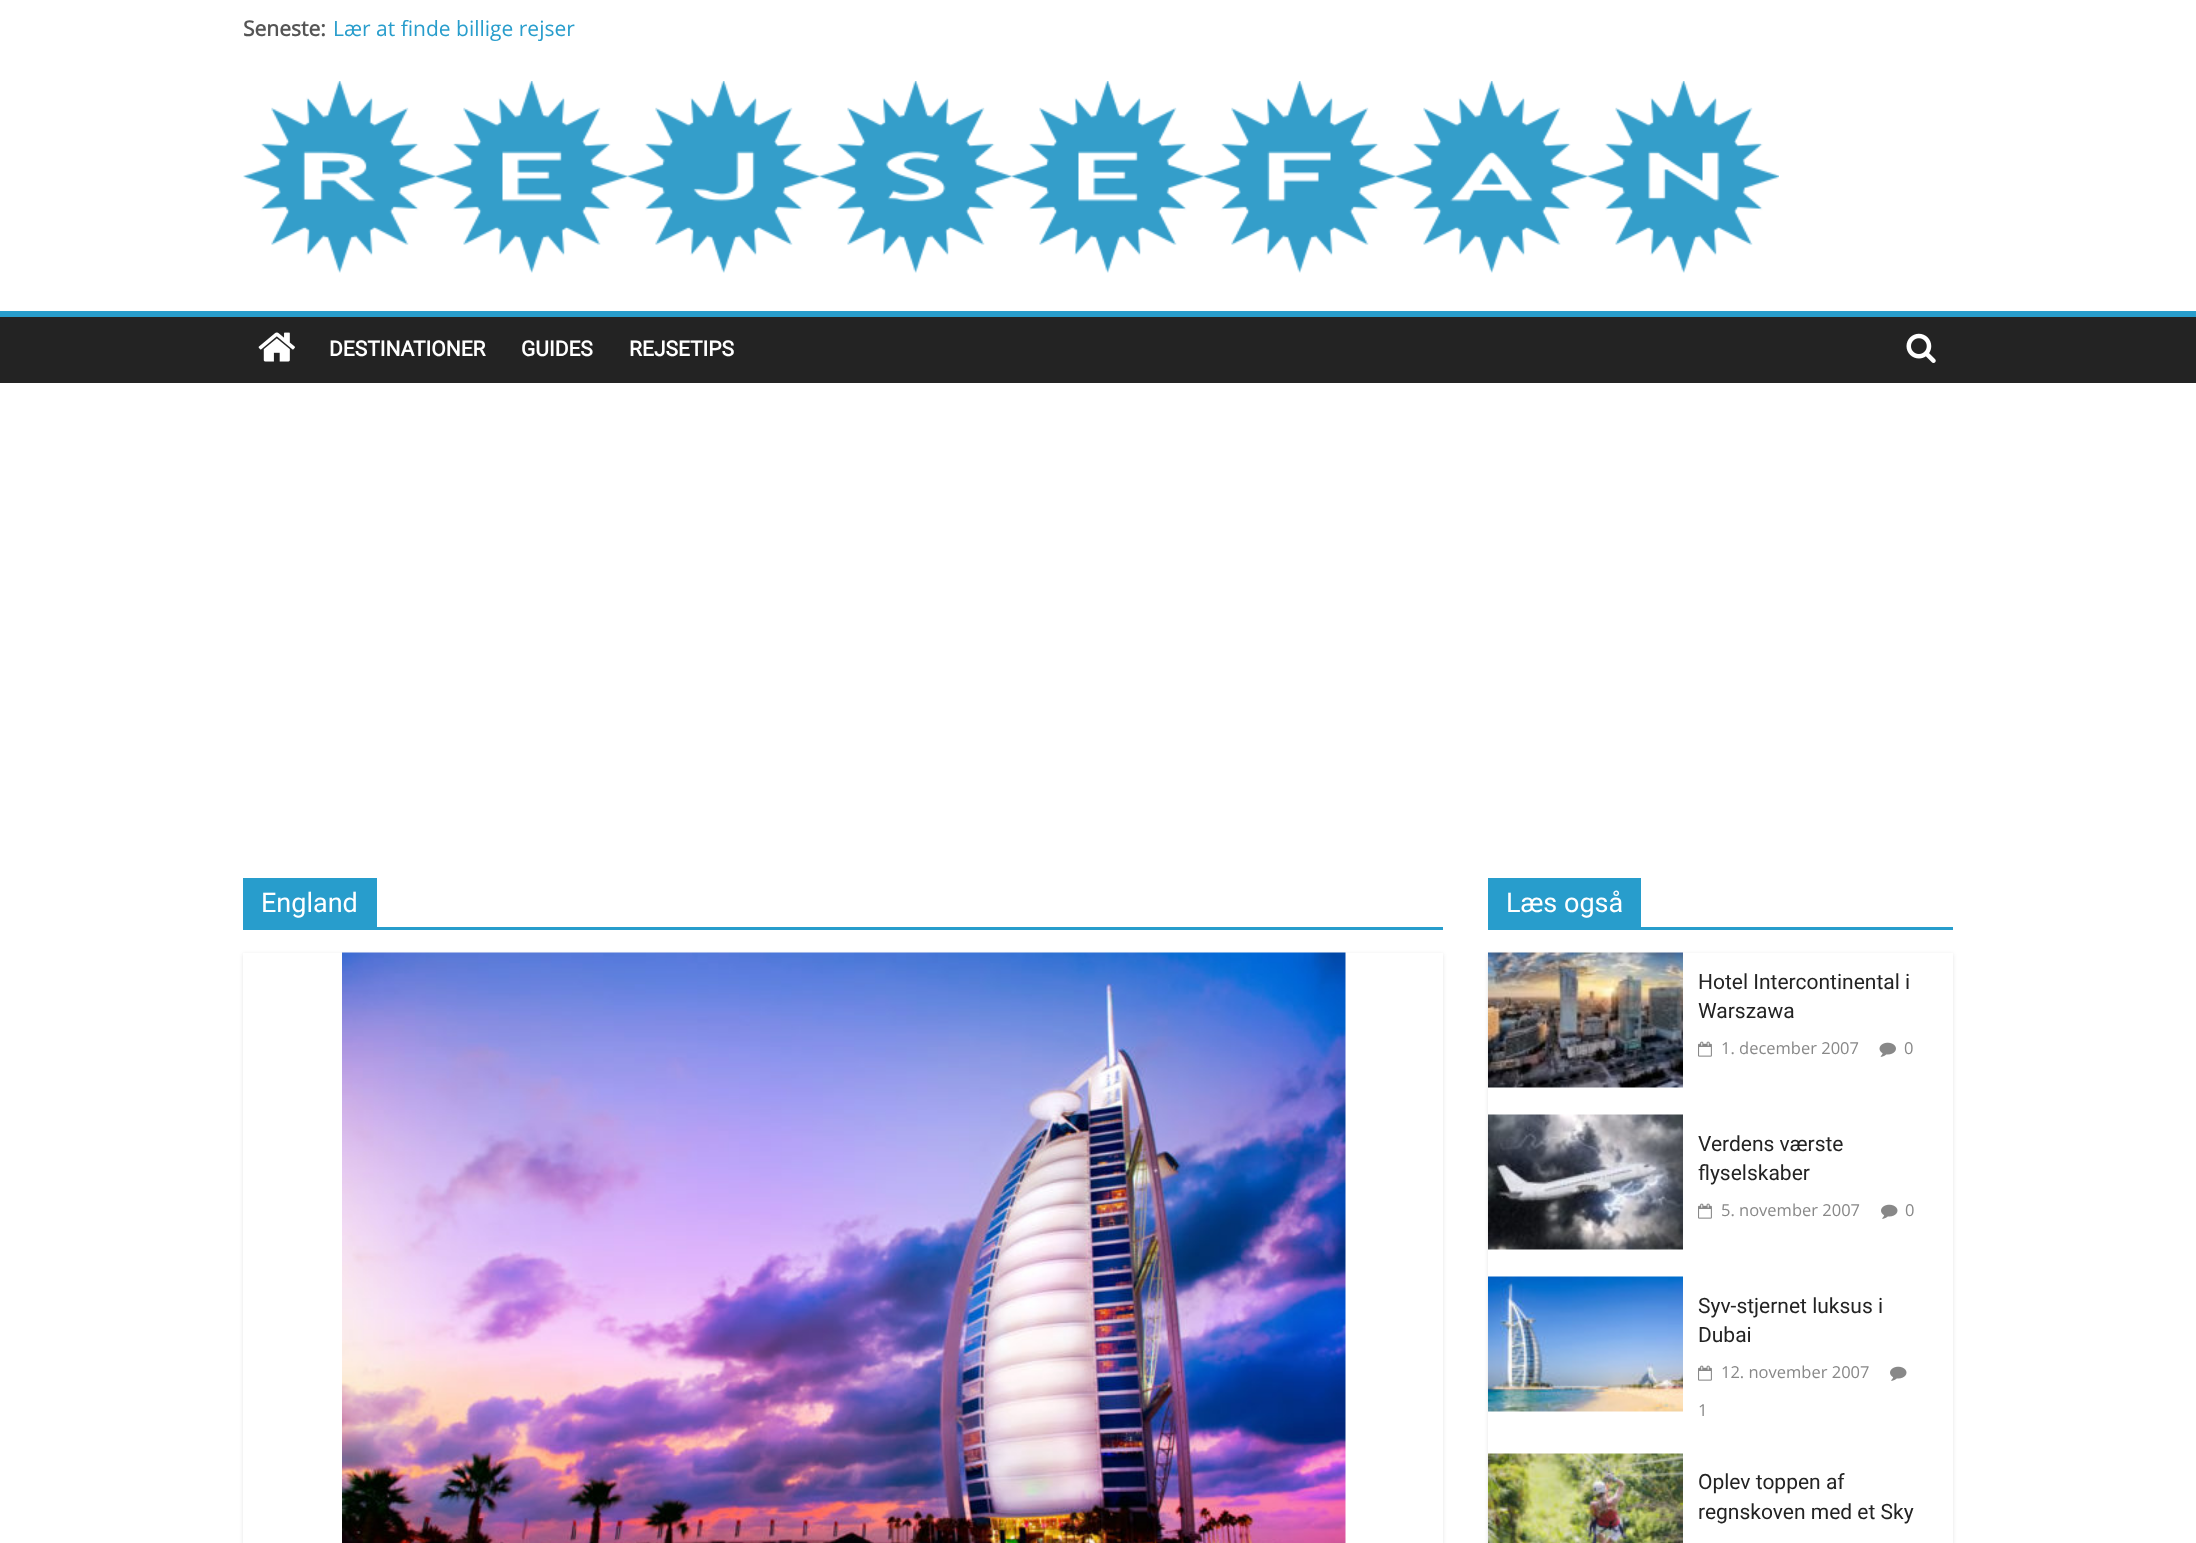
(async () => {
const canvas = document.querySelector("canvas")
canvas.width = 2196
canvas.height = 1543
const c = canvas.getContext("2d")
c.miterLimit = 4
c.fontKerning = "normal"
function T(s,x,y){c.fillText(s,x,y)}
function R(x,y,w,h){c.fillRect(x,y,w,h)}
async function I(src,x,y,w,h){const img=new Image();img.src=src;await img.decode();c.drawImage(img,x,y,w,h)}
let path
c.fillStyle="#fff"
R(0,0,2196,1543)
c.font="bold 21px Open Sans"
c.fillStyle="#555"
T("Seneste:",243,36)
c.font="21px Open Sans"
c.fillStyle="#289dcc"
T("Lær at finde billige rejser",333,36)
await I("1.png",243,81,1536,192)
c.fillStyle="#232323"
R(0,317,2196,66)
c.fillStyle="#289dcc"
R(0,311,2196,6)
await I("2.png",258,332,37,30)
c.font="bold 21px Roboto"
c.fillStyle="#fff"
T("DESTINATIONER",329,356)
T("GUIDES",521,356)
T("REJSETIPS",629,356)
await I("3.png",1906,333,30,30)
c.fillStyle="#289dcc"
R(243,927,1200,3)
R(243,878,134,49)
c.font="27px Roboto"
c.fillStyle="#fff"
T("England",261,912)
c.save()
path = new Path2D("M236 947h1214v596h-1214zm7 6h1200v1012h-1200z")
c.clip(path,"evenodd")
c.fillStyle="#0000001a"
c.filter="blur(2px)"
c.beginPath()
c.rect(243,954,1200,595)
c.fill()
c.filter="none"
c.restore()
await I("4.png",342,952,1004,591)
c.fillStyle="#289dcc"
R(1488,927,465,3)
R(1488,878,153,49)
c.fillStyle="#fff"
T("Læs også",1506,912)
c.save()
path = new Path2D("M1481 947h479v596h-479zm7 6h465v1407h-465z")
c.clip(path,"evenodd")
c.fillStyle="#0000001a"
c.filter="blur(2px)"
c.beginPath()
c.rect(1488,954,465,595)
c.fill()
c.filter="none"
c.restore()
await I("5.png",1488,952,195,136)
c.font="21px Roboto"
c.fillStyle="#232323"
T("Hotel Intercontinental i",1698,989)
T("Warszawa",1698,1018)
await I("6.png",1698,1041,14,16)
c.font="16.5px Open Sans"
c.fillStyle="#888"
T("1. december 2007",1721,1054)
await I("7.png",1879,1042,17,15)
T("0",1904,1054)
await I("8.png",1488,1114,195,136)
c.font="21px Roboto"
c.fillStyle="#232323"
T("Verdens værste",1698,1151)
T("flyselskaber",1698,1180)
await I("6.png",1698,1203,14,16)
c.font="16.5px Open Sans"
c.fillStyle="#888"
T("5. november 2007",1721,1216)
await I("9.png",1881,1204,17,15)
T("0",1905,1216)
await I("10.png",1488,1276,195,136)
c.font="21px Roboto"
c.fillStyle="#232323"
T("Syv-stjernet luksus i",1698,1313)
T("Dubai",1698,1342)
await I("6.png",1698,1365,14,16)
c.font="16.5px Open Sans"
c.fillStyle="#888"
T("12. november 2007",1721,1378)
await I("9.png",1890,1366,17,15)
T("1",1698,1416)
await I("11.png",1488,1453,195,90)
c.font="21px Roboto"
c.fillStyle="#232323"
T("Oplev toppen af",1698,1489)
T("regnskoven med et Sky",1698,1519)
})()
